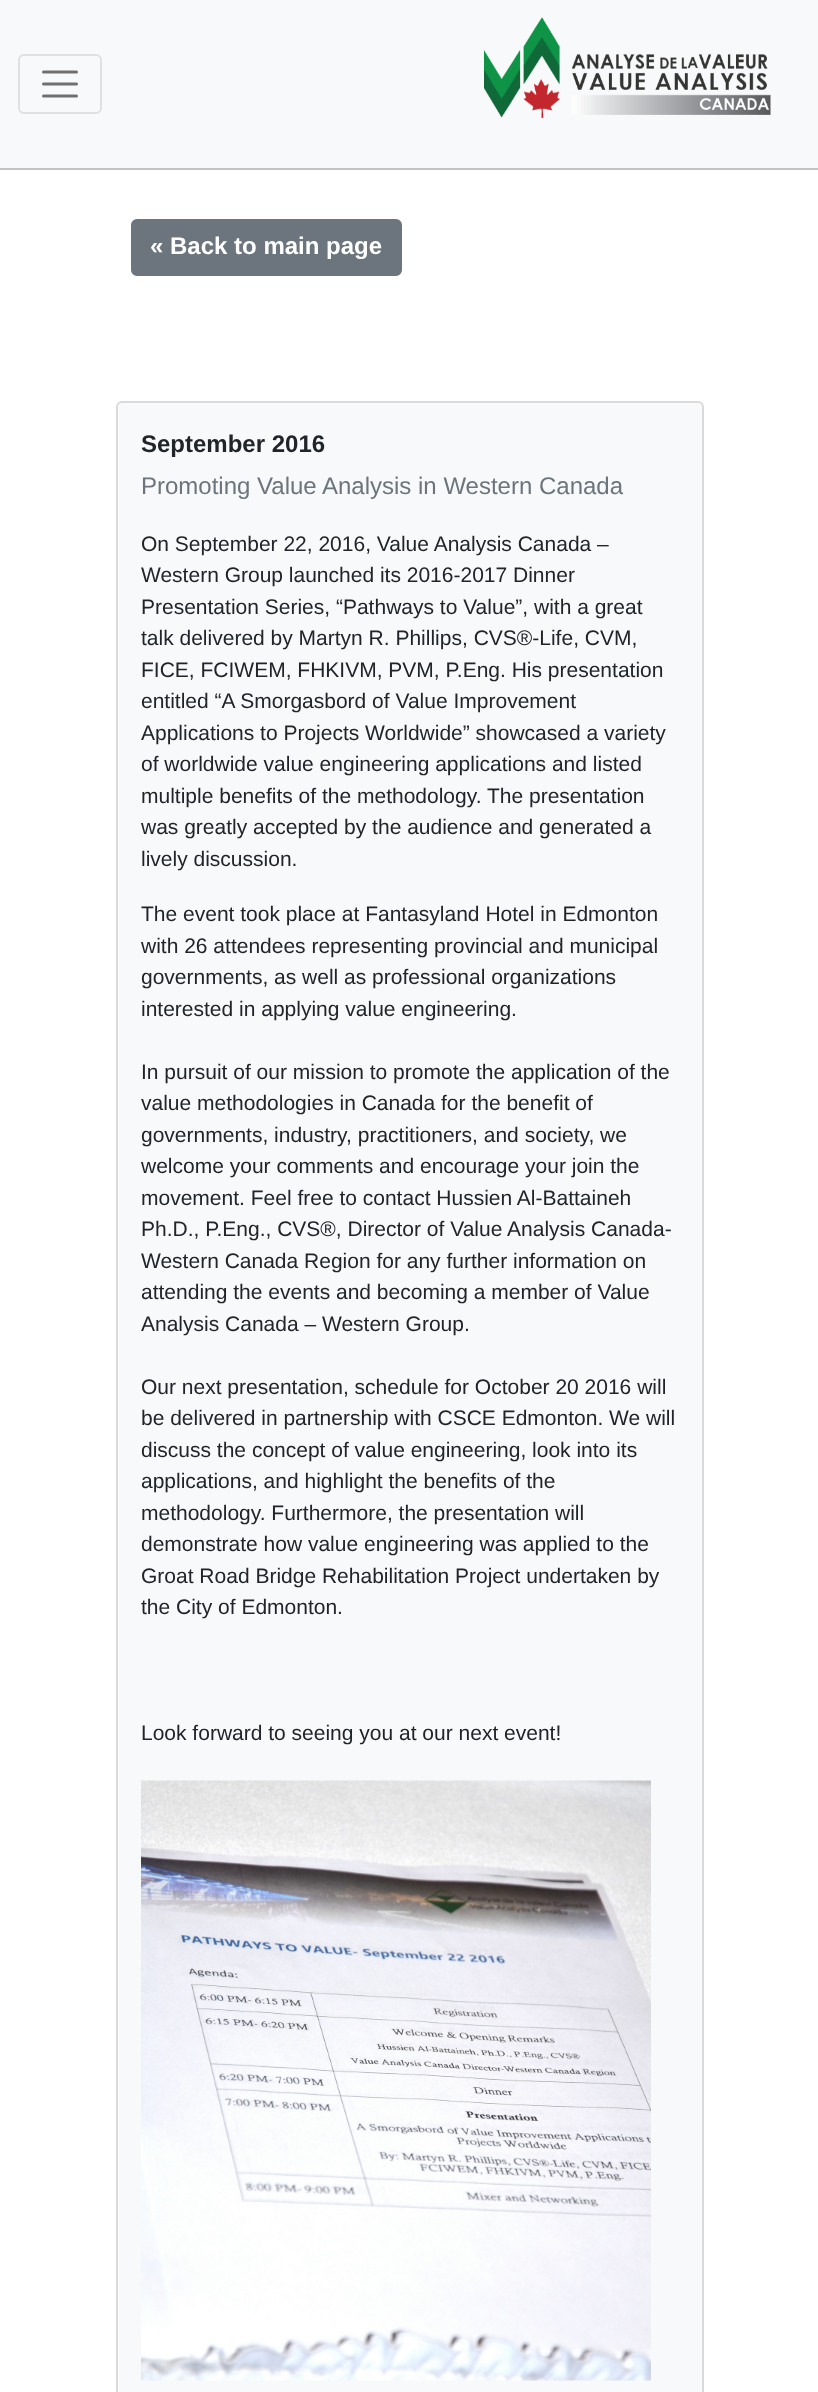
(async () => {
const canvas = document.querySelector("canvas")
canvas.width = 818
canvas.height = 2392
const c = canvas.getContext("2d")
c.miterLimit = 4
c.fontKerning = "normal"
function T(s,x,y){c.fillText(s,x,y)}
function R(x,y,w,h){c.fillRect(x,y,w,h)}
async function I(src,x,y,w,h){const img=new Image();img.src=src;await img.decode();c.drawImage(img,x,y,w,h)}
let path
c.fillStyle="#fff"
R(0,0,818,2392)
c.fillStyle="#f8f9fa"
R(0,0,818,168)
c.fillStyle="#c1c2c2"
R(0,168,818,2)
c.beginPath()
c.roundRect(19,55,82,58,5)
c.strokeStyle="#dfe0e1"
c.lineWidth=2
c.stroke()
path = new Path2D("M43.5 72h33m-33 12h33m-33 12h33")
c.strokeStyle="#707071"
c.lineWidth=3
c.lineCap="round"
c.stroke(path)
await I("1.png",484,17,287,102)
c.fillStyle="#6c757d"
c.beginPath()
c.roundRect(132,220,269,55,5)
c.fill()
c.strokeStyle="#6c757d"
c.lineWidth=2
c.stroke()
c.font="bold 24px Liberation Sans"
c.fillStyle="#fff"
T("« Back to main page",150,254)
c.fillStyle="#f8f9fa"
c.beginPath()
c.roundRect(117,402,586,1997,5)
c.fill()
c.strokeStyle="#d9dadb"
c.stroke()
c.fillStyle="#212529"
T("September 2016",141,452)
c.font="24px Liberation Sans"
c.fillStyle="#6c757d"
T("Promoting Value Analysis in Western Canada",141,494)
c.font="21px Liberation Sans"
c.fillStyle="#212529"
T("On September 22, 2016, Value Analysis Canada –",141,551)
T("Western Group launched its 2016-2017 Dinner",141,582)
T("Presentation Series, “Pathways to Value”, with a great",141,614)
T("talk delivered by Martyn R. Phillips, CVS®-Life, CVM,",141,645)
T("FICE, FCIWEM, FHKIVM, PVM, P.Eng. His presentation",141,677)
T("entitled “A Smorgasbord of Value Improvement",141,708)
T("Applications to Projects Worldwide” showcased a variety",141,740)
T("of worldwide value engineering applications and listed",141,771)
T("multiple benefits of the methodology. The presentation",141,803)
T("was greatly accepted by the audience and generated a",141,834)
T("lively discussion.",141,866)
T("The event took place at Fantasyland Hotel in Edmonton",141,921)
T("with 26 attendees representing provincial and municipal",141,953)
T("governments, as well as professional organizations",141,984)
T("interested in applying value engineering.",141,1016)
T("In pursuit of our mission to promote the application of the",141,1079)
T("value methodologies in Canada for the benefit of",141,1110)
T("governments, industry, practitioners, and society, we",141,1142)
T("welcome your comments and encourage your join the",141,1173)
T("movement. Feel free to contact Hussien Al-Battaineh",141,1205)
T("Ph.D., P.Eng., CVS®, Director of Value Analysis Canada-",141,1236)
T("Western Canada Region for any further information on",141,1268)
T("attending the events and becoming a member of Value",141,1299)
T("Analysis Canada – Western Group.",141,1331)
T("Our next presentation, schedule for October 20 2016 will",141,1394)
T("be delivered in partnership with CSCE Edmonton. We will",141,1425)
T("discuss the concept of value engineering, look into its",141,1457)
T("applications, and highlight the benefits of the",141,1488)
T("methodology. Furthermore, the presentation will",141,1520)
T("demonstrate how value engineering was applied to the",141,1551)
T("Groat Road Bridge Rehabilitation Project undertaken by",141,1583)
T("the City of Edmonton.",141,1614)
T("Look forward to seeing you at our next event!",141,1740)
await I("2.png",141,1780,510,601)
})()
